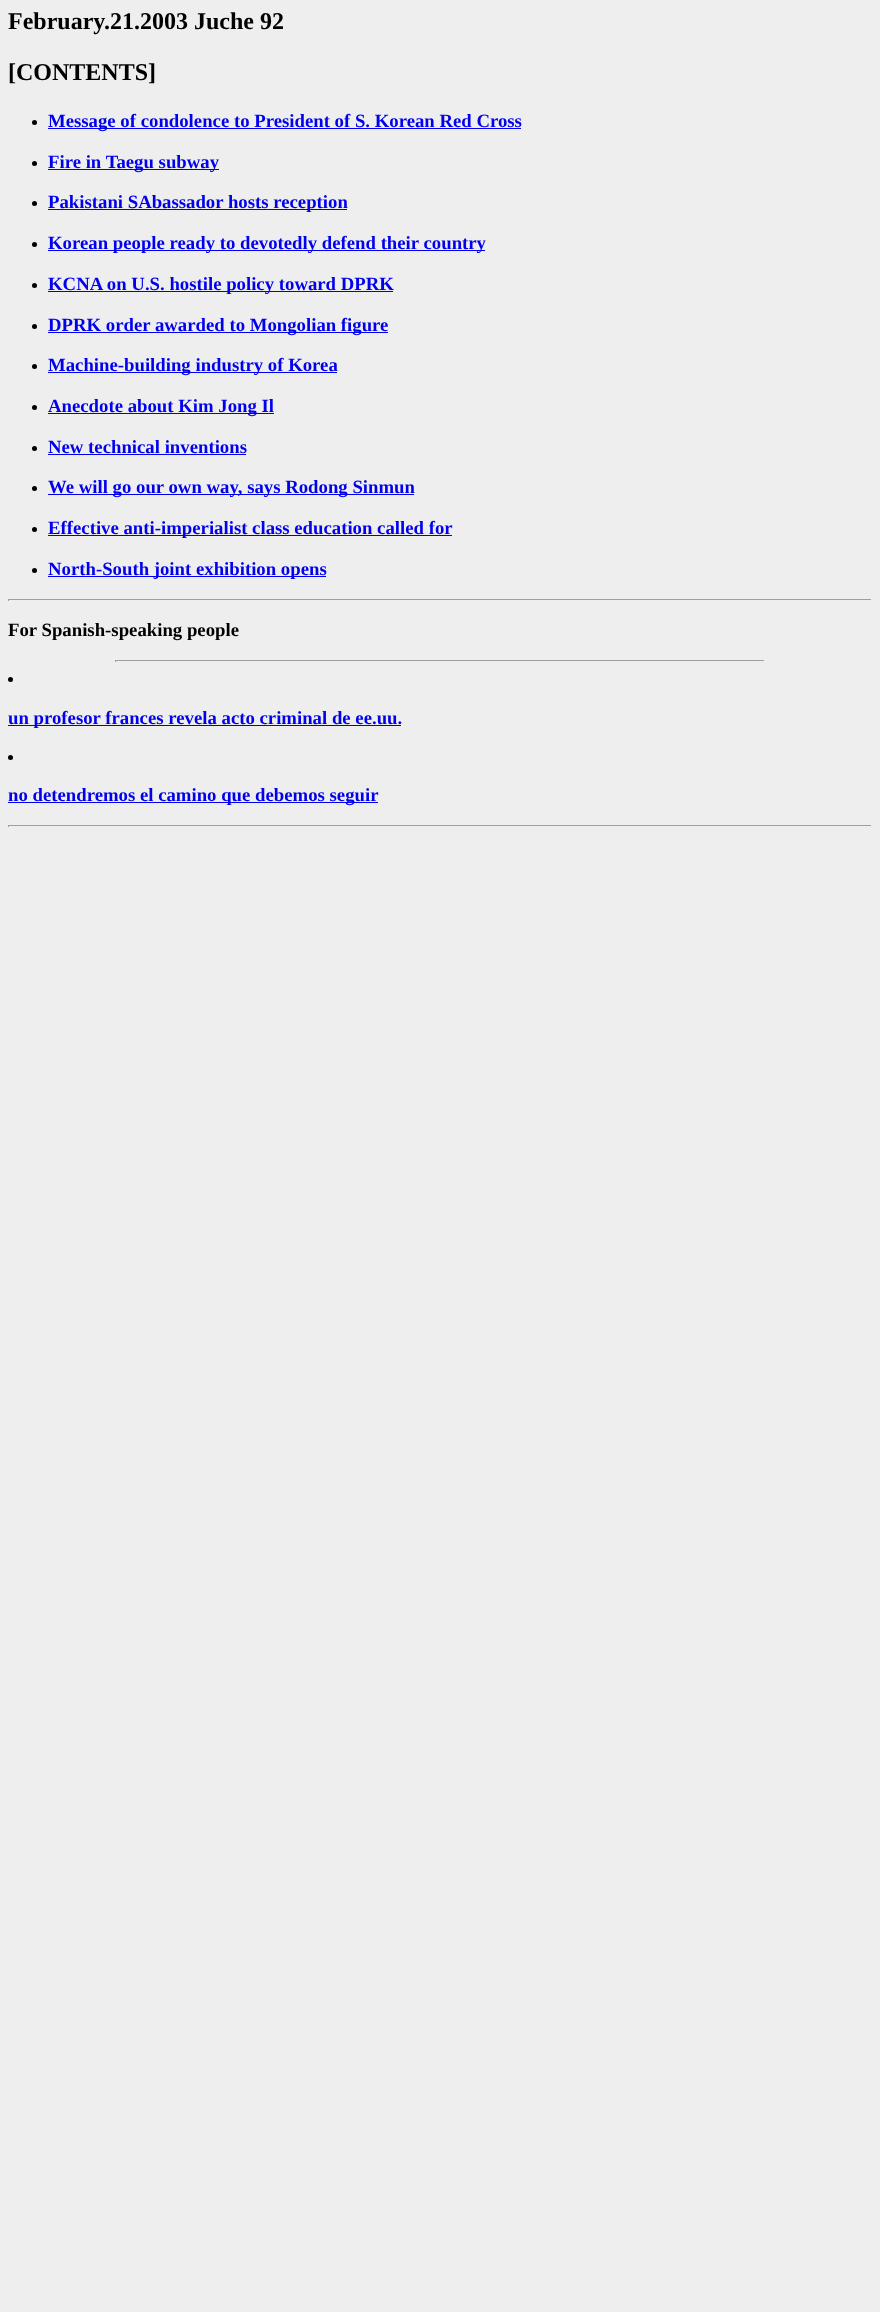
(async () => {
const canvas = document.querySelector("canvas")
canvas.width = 880
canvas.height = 2312
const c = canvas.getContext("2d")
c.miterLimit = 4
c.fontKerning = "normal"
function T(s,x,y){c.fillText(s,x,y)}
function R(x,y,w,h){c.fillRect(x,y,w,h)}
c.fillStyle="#eee"
R(0,0,880,2312)
c.font="bold 24px Liberation Serif"
c.fillStyle="#000"
T("February.21.2003 Juche 92",8,29)
T("[CONTENTS]",8,80)
c.beginPath()
c.arc(34.5,122.5,2.5,0,7)
c.fill()
c.fillStyle="#00e"
R(48,128,473,1)
c.font="bold 18.75px Liberation Serif"
T("Message of condolence to President of S. Korean Red Cross",48,127)
c.fillStyle="#000"
c.beginPath()
c.arc(34.5,163.5,2.5,0,7)
c.fill()
c.fillStyle="#00e"
R(48,169,171,1)
T("Fire in Taegu subway",48,168)
c.fillStyle="#000"
c.beginPath()
c.arc(34.5,203.5,2.5,0,7)
c.fill()
c.fillStyle="#00e"
R(48,209,299,1)
T("Pakistani SAbassador hosts reception",48,208)
c.fillStyle="#000"
c.beginPath()
c.arc(34.5,244.5,2.5,0,7)
c.fill()
c.fillStyle="#00e"
R(48,250,437,1)
T("Korean people ready to devotedly defend their country",48,249)
c.fillStyle="#000"
c.beginPath()
c.arc(34.5,285.5,2.5,0,7)
c.fill()
c.fillStyle="#00e"
R(48,291,345,1)
T("KCNA on U.S. hostile policy toward DPRK",48,290)
c.fillStyle="#000"
c.beginPath()
c.arc(34.5,326.5,2.5,0,7)
c.fill()
c.fillStyle="#00e"
R(48,332,340,1)
T("DPRK order awarded to Mongolian figure",48,331)
c.fillStyle="#000"
c.beginPath()
c.arc(34.5,366.5,2.5,0,7)
c.fill()
c.fillStyle="#00e"
R(48,372,289,1)
T("Machine-building industry of Korea",48,371)
c.fillStyle="#000"
c.beginPath()
c.arc(34.5,407.5,2.5,0,7)
c.fill()
c.fillStyle="#00e"
R(48,413,226,1)
T("Anecdote about Kim Jong Il",48,412)
c.fillStyle="#000"
c.beginPath()
c.arc(34.5,448.5,2.5,0,7)
c.fill()
c.fillStyle="#00e"
T("New technical inventions",48,453)
R(48,454,198,1)
c.fillStyle="#000"
c.beginPath()
c.arc(34.5,488.5,2.5,0,7)
c.fill()
c.fillStyle="#00e"
R(48,494,366,1)
T("We will go our own way, says Rodong Sinmun",48,493)
c.fillStyle="#000"
c.beginPath()
c.arc(34.5,529.5,2.5,0,7)
c.fill()
c.fillStyle="#00e"
R(48,535,404,1)
T("Effective anti-imperialist class education called for",48,534)
c.fillStyle="#000"
c.beginPath()
c.arc(34.5,570.5,2.5,0,7)
c.fill()
c.fillStyle="#00e"
R(48,576,278,1)
T("North-South joint exhibition opens",48,575)
c.fillStyle="#9f9f9f"
R(8,599,864,1)
c.fillStyle="#eee"
R(871,599,1,2)
c.fillStyle="#9f9f9f"
R(8,599,1,2)
c.fillStyle="#000"
T("For Spanish-speaking people",8,636)
c.fillStyle="#9f9f9f"
R(115,660,650,1)
c.fillStyle="#eee"
R(764,660,1,2)
c.fillStyle="#9f9f9f"
R(115,660,1,2)
c.fillStyle="#000"
c.beginPath()
c.arc(10.5,679.5,2.5,0,7)
c.fill()
c.fillStyle="#00e"
R(8,725,393,1)
T("un profesor frances revela acto criminal de ee.uu.",8,724)
c.fillStyle="#000"
c.beginPath()
c.arc(10.5,757.5,2.5,0,7)
c.fill()
c.fillStyle="#00e"
R(8,802,370,1)
T("no detendremos el camino que debemos seguir",8,801)
c.fillStyle="#9f9f9f"
R(8,825,864,1)
c.fillStyle="#eee"
R(871,825,1,2)
c.fillStyle="#9f9f9f"
R(8,825,1,2)
})()
